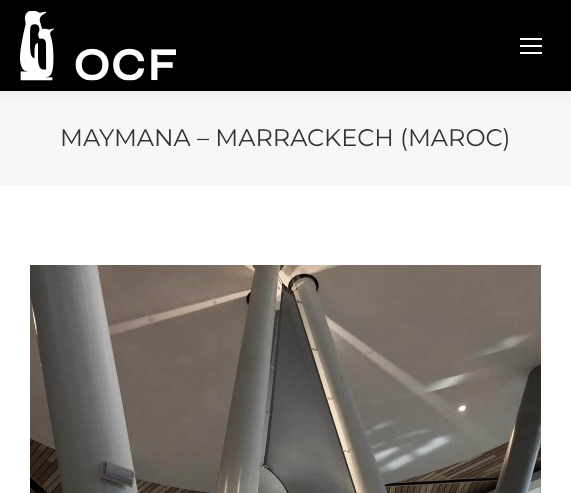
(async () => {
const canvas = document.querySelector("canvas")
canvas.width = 571
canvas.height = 493
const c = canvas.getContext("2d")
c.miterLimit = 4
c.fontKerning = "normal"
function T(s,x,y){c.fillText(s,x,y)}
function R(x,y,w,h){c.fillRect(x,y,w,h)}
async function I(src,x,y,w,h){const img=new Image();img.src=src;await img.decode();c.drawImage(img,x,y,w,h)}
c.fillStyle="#fff"
R(0,0,571,493)
c.fillStyle="#f7f7f7"
R(0,91,571,94)
c.fillStyle="#00000012"
c.filter="blur(7.5px)"
c.beginPath()
c.rect(-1,-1,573,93)
c.fill()
c.filter="none"
c.fillStyle="#000"
R(0,0,571,91)
await I("1.png",20,11,156,70)
c.fillStyle="#fff"
R(520,38,22,2)
R(520,45,22,2)
R(520,52,22,2)
c.font="24px Montserrat"
c.fillStyle="#333"
T("MAYMANA – MARRACKECH (MAROC)",60,146)
await I("2.png",30,265,511,228)
})()
